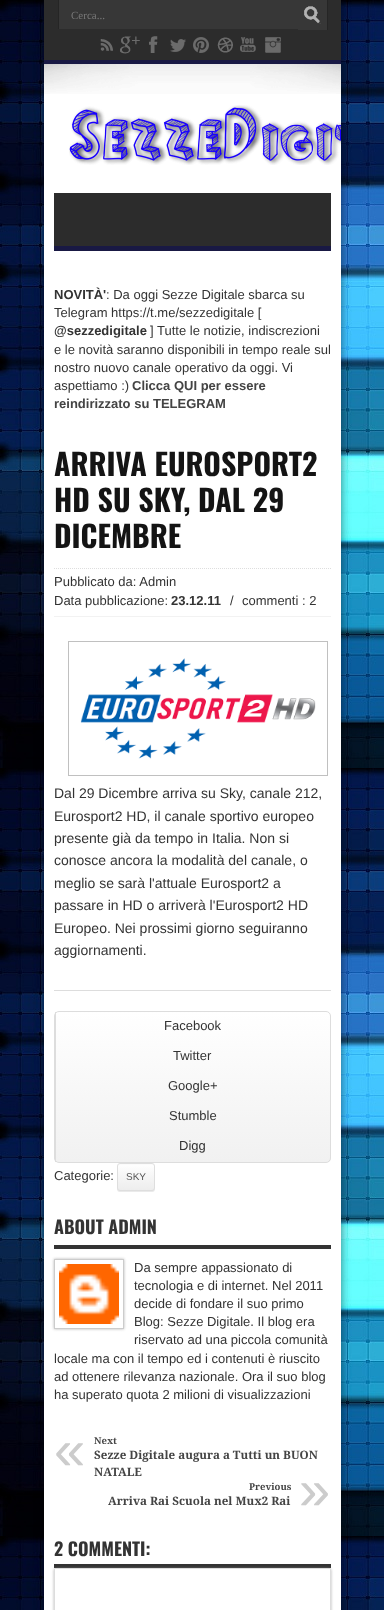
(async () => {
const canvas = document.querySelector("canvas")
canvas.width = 384
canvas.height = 1610
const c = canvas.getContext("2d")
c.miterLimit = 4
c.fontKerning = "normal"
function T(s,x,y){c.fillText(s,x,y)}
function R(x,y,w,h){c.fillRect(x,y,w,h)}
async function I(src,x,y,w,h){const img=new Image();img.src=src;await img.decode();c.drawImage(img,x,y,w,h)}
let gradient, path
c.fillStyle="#fff"
R(0,0,384,1610)
await I("1.png",0,0,384,1610)
c.fillStyle="#00000080"
c.filter="blur(5px)"
c.beginPath()
c.rect(44,0,297,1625)
c.fill()
c.filter="none"
c.fillStyle="#fff"
R(44,64,297,1546)
c.fillStyle="#2c2c2c"
R(44,0,297,60)
c.fillStyle="#191944"
R(44,60,297,4)
c.fillStyle="#373737"
R(59,0,239,29)
c.fillStyle="#252525"
R(58,0,1,29)
c.font="11px Liberation Serif"
c.fillStyle="#787878"
T("Cerca...",71,19)
c.fillStyle="#373737"
R(298,0,29,30)
await I("2.png",304,6,17,18)
c.fillStyle="#252525"
R(327,0,1,30)
await I("3.png",100,39,13,12)
await I("4.png",120,36,20,18)
await I("5.png",149,36,9,17)
await I("6.png",170,39,16,13)
await I("7.png",193,37,16,16)
await I("8.png",217,37,16,16)
await I("9.png",240,37,16,15)
await I("10.png",265,37,16,16)
await I("11.png",44,64,297,30)
await I("12.png",69,105,272,60)
c.fillStyle="#2c2c2c"
R(54,193,277,53)
c.fillStyle="#191944"
R(54,246,277,5)
c.font="bold 13px Liberation Sans"
c.fillStyle="#333"
T("NOVITÀ'",54,299)
c.font="13px Liberation Sans"
T(": Da oggi Sezze Digitale sbarca su",106,299)
T("Telegram https://t.me/sezzedigitale [",54,317)
c.font="bold 13px Liberation Sans"
T("@sezzedigitale",54,335)
c.font="13px Liberation Sans"
T("] Tutte le notizie, indiscrezioni",150,335)
T("e le novità saranno disponibili in tempo reale sul",54,354)
T("nostro nuovo canale operativo da oggi. Vi",54,372)
T("aspettiamo :)",54,390)
c.font="bold 13px Liberation Sans"
c.fillStyle="#444"
T("Clicca QUI per essere",132,390)
T("reindirizzato su TELEGRAM",54,408)
path = new Path2D("M54 568.5h277")
c.strokeStyle="#dedede"
c.setLineDash([1,1])
c.stroke(path)
c.font="bold 30px Oswald"
c.fillStyle="#141414"
T("ARRIVA EUROSPORT2",54,476)
T("HD SU SKY, DAL 29",54,512)
T("DICEMBRE",54,548)
c.fillStyle="#f2f2f2"
R(54,616,277,1)
c.font="13px Liberation Sans"
c.fillStyle="#333"
T("Pubblicato da: Admin",54,586)
T("Data pubblicazione:",54,605)
c.font="bold 13px Liberation Sans"
T("23.12.11",171,605)
c.font="13px Liberation Sans"
T("/",230,605)
T("commenti : 2",242,605)
c.strokeStyle="#c0c0c0"
c.setLineDash([])
c.strokeRect(68.5,641.5,259,134)
await I("13.png",80,658,236,101)
c.font="14px Liberation Sans"
T("Dal 29 Dicembre arriva su Sky, canale 212,",54,798)
T("Eurosport2 HD, il canale sportivo europeo",54,821)
T("presente già da tempo in Italia. Non si",54,843)
T("conosce ancora la modalità del canale, o",54,865)
T("meglio se sarà l'attuale Eurosport2 a",54,888)
T("passare in HD o arriverà l'Eurosport2 HD",54,910)
T("Europeo. Nei prossimi giorno seguiranno",54,933)
T("aggiornamenti.",54,955)
c.fillStyle="#ddd"
R(54,990,277,1)
c.fillStyle="#eaeaea"
c.filter="blur(0.5px)"
c.beginPath()
c.roundRect(117,1164,38,28,3)
c.fill()
c.filter="none"
c.save()
c.beginPath()
c.roundRect(54,1011,277,152,5)
c.clip()
gradient = c.createLinearGradient(193,1012,193,1162)
gradient.addColorStop(0,"#fff")
gradient.addColorStop(1,"#f1f1f1")
c.fillStyle = gradient
R(54,1012,277,150)
c.restore()
c.beginPath()
c.roundRect(54.5,1011.5,276,151,4.5)
c.strokeStyle="#ddd"
c.stroke()
c.fillStyle="#ddd"
R(55,1012,1,150)
c.font="13px Liberation Sans"
c.fillStyle="#333"
T("Facebook",164,1030)
T("Twitter",173,1060)
T("Google+",168,1090)
T("Stumble",169,1120)
T("Digg",179,1150)
T("Categorie:",54,1180)
c.save()
c.beginPath()
c.roundRect(117,1163,38,28,3)
c.clip()
gradient = c.createLinearGradient(136,1164,136,1190)
gradient.addColorStop(0,"#fff")
gradient.addColorStop(.47,"#f6f6f6")
gradient.addColorStop(1,"#ededed")
c.fillStyle = gradient
R(117,1164,38,26)
c.restore()
c.fillStyle="#fbfbfb"
path = new Path2D("M120 1165h32c1 0 2 1 2 2c0-4.5-3.5-3-7.5-3h-21c-4 0-7.5-1.5-7.5 3c0-1 1-2 2-2z")
c.fill(path)
c.beginPath()
c.roundRect(117.5,1163.5,37,27,2.5)
c.strokeStyle="#dedede"
c.stroke()
c.font="10px Liberation Sans"
c.fillStyle="#555"
T("SKY",126,1180)
c.fillStyle="#333"
R(54,1245,277,4)
c.font="bold 18px Oswald"
T("ABOUT ADMIN",54,1234)
c.save()
path = new Path2D("M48 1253h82v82h-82zm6 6h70v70h-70z")
c.clip(path,"evenodd")
c.fillStyle="#b5b5b5"
c.filter="blur(1.5px)"
c.beginPath()
c.rect(54,1259,70,70)
c.fill()
c.filter="none"
c.restore()
c.strokeStyle="#ccc"
c.strokeRect(54.5,1259.5,69,69)
await I("14.png",59,1264,60,60)
c.font="13px Liberation Sans"
T("Da sempre appassionato di",134,1272)
T("tecnologia e di internet. Nel 2011",134,1290)
T("decide di fondare il suo primo",134,1308)
T("Blog: Sezze Digitale. Il blog era",134,1326)
T("riservato ad una piccola comunità",134,1344)
T("locale ma con il tempo ed i contenuti è riuscito",54,1363)
T("ad ottenere rilevanza nazionale. Ora il suo blog",54,1381)
T("ha superato quota 2 milioni di visualizzazioni",54,1399)
c.font="56px Liberation Sans"
c.fillStyle="#ccc"
T("«",54,1469)
c.font="bold 9.5px Droid Serif"
c.fillStyle="#444"
T("Next",94,1444)
c.font="bold 11.6px Droid Serif"
T("Sezze Digitale augura a Tutti un BUON",94,1459)
T("NATALE",94,1476)
c.font="bold 9.5px Droid Serif"
T("Previous",249,1490)
c.font="bold 11.6px Droid Serif"
T("Arriva Rai Scuola nel Mux2 Rai",108,1505)
c.font="56px Liberation Sans"
c.fillStyle="#ccc"
T("»",299,1509)
c.fillStyle="#333"
R(54,1564,277,4)
c.font="bold 18px Oswald"
T("2 COMMENTI:",54,1556)
c.fillStyle="#b5b5b5"
c.filter="blur(1.5px)"
c.beginPath()
c.roundRect(54,1569,277,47,1)
c.fill()
c.filter="none"
c.fillStyle="#fff"
c.beginPath()
c.roundRect(54.5,1568.5,276,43,.5)
c.fill()
c.strokeStyle="#ddd"
c.stroke()
})()
